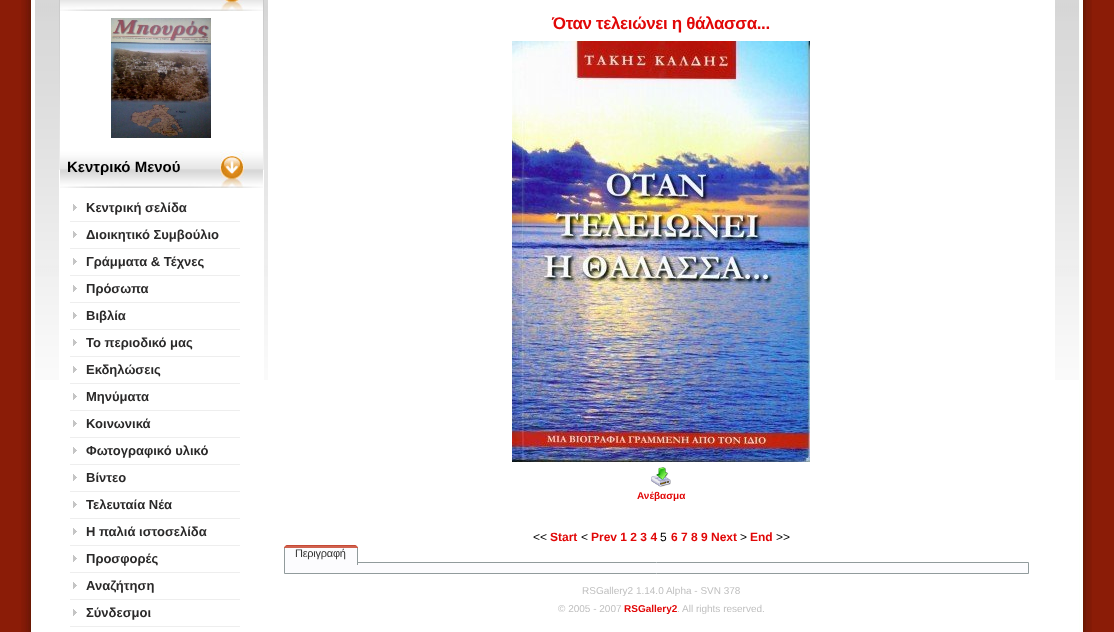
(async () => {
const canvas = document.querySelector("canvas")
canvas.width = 1114
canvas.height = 632
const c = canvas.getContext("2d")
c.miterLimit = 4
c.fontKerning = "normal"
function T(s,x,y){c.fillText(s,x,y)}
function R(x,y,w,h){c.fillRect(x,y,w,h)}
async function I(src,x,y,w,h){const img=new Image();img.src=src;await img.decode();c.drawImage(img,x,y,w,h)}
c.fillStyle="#8b1c07"
R(0,0,1114,632)
await I("1.png",21,0,14,632)
await I("2.png",1079,0,13,632)
c.fillStyle="#fff"
R(35,380,1044,252)
await I("3.png",35,0,1044,380)
R(59,170,205,210)
await I("4.png",59,0,205,170)
await I("5.png",60,0,203,11)
await I("6.png",111,18,100,120)
await I("7.png",60,150,203,38)
c.font="bold 15px Liberation Sans"
c.fillStyle="#000"
T("Κεντρικό Μενού",67,172)
await I("8.png",73,204,4,7)
c.fillStyle="#eee"
R(70,221,170,1)
c.font="bold 13px Liberation Sans"
c.fillStyle="#2a2929"
T("Κεντρική σελίδα",86,212)
await I("8.png",73,231,4,7)
c.fillStyle="#eee"
R(70,248,170,1)
c.fillStyle="#2a2929"
T("Διοικητικό Συμβούλιο",86,239)
await I("8.png",73,258,4,7)
c.fillStyle="#eee"
R(70,275,170,1)
c.fillStyle="#2a2929"
T("Γράμματα & Τέχνες",86,266)
await I("8.png",73,285,4,7)
c.fillStyle="#eee"
R(70,302,170,1)
c.fillStyle="#2a2929"
T("Πρόσωπα",86,293)
await I("8.png",73,312,4,7)
c.fillStyle="#eee"
R(70,329,170,1)
c.fillStyle="#2a2929"
T("Βιβλία",86,320)
await I("8.png",73,339,4,7)
c.fillStyle="#eee"
R(70,356,170,1)
c.fillStyle="#2a2929"
T("Το περιοδικό μας",86,347)
await I("8.png",73,366,4,7)
c.fillStyle="#eee"
R(70,383,170,1)
c.fillStyle="#2a2929"
T("Εκδηλώσεις",86,374)
await I("8.png",73,393,4,7)
c.fillStyle="#eee"
R(70,410,170,1)
c.fillStyle="#2a2929"
T("Μηνύματα",86,401)
await I("8.png",73,420,4,7)
c.fillStyle="#eee"
R(70,437,170,1)
c.fillStyle="#2a2929"
T("Κοινωνικά",86,428)
await I("8.png",73,447,4,7)
c.fillStyle="#eee"
R(70,464,170,1)
c.fillStyle="#2a2929"
T("Φωτογραφικό υλικό",86,455)
await I("8.png",73,474,4,7)
c.fillStyle="#eee"
R(70,491,170,1)
c.fillStyle="#2a2929"
T("Βίντεο",86,482)
await I("8.png",73,501,4,7)
c.fillStyle="#eee"
R(70,518,170,1)
c.fillStyle="#2a2929"
T("Τελευταία Νέα",86,509)
await I("8.png",73,528,4,7)
c.fillStyle="#eee"
R(70,545,170,1)
c.fillStyle="#2a2929"
T("Η παλιά ιστοσελίδα",86,536)
await I("8.png",73,555,4,7)
c.fillStyle="#eee"
R(70,572,170,1)
c.fillStyle="#2a2929"
T("Προσφορές",86,563)
await I("8.png",73,582,4,7)
c.fillStyle="#eee"
R(70,599,170,1)
c.fillStyle="#2a2929"
T("Αναζήτηση",86,590)
await I("8.png",73,609,4,7)
c.fillStyle="#eee"
R(70,626,170,1)
c.fillStyle="#2a2929"
T("Σύνδεσμοι",86,617)
c.fillStyle="#fff"
R(268,0,787,380)
c.letterSpacing="-0.35px"
c.font="bold 17px Liberation Sans"
c.fillStyle="#e10707"
T("Όταν τελειώνει η θάλασσα...",552,29)
await I("9.png",512,41,298,421)
await I("10.png",651,467,20,20)
c.letterSpacing="0px"
c.font="bold 10px Liberation Sans"
T("Ανέβασμα",637,499)
c.font="12px Liberation Sans"
c.fillStyle="#000"
T("<<",533,541)
c.font="bold 12px Liberation Sans"
c.fillStyle="#e10707"
T("Start",550,541)
c.font="12px Liberation Sans"
c.fillStyle="#000"
T("<",581,541)
c.font="bold 12px Liberation Sans"
c.fillStyle="#e10707"
T("Prev 1 2 3 4",591,541)
c.font="12px Liberation Sans"
c.fillStyle="#000"
T("5",660,541)
c.font="bold 12px Liberation Sans"
c.fillStyle="#e10707"
T("6 7 8 9 Next",671,541)
c.font="12px Liberation Sans"
c.fillStyle="#000"
T(">",740,541)
c.font="bold 12px Liberation Sans"
c.fillStyle="#e10707"
T("End",750,541)
c.font="12px Liberation Sans"
c.fillStyle="#000"
T(">>",776,541)
c.fillStyle="#fcfcfe"
c.beginPath()
c.rect(284.5,562.5,744,11)
c.fill()
c.strokeStyle="#919b9c"
c.stroke()
await I("11.png",284,545,74,20)
c.letterSpacing="-0.25px"
c.font="11px Liberation Sans"
c.fillStyle="#333"
T("Περιγραφή",295,557)
c.letterSpacing="0px"
c.font="10px Liberation Sans"
c.fillStyle="#c0c0c0"
T("RSGallery2 1.14.0 Alpha - SVN 378",582,594)
T("© 2005 - 2007",558,612)
c.font="bold 10px Liberation Sans"
c.fillStyle="#e10707"
T("RSGallery2",624,612)
c.font="10px Liberation Sans"
c.fillStyle="#c0c0c0"
T(". All rights reserved.",677,612)
})()
